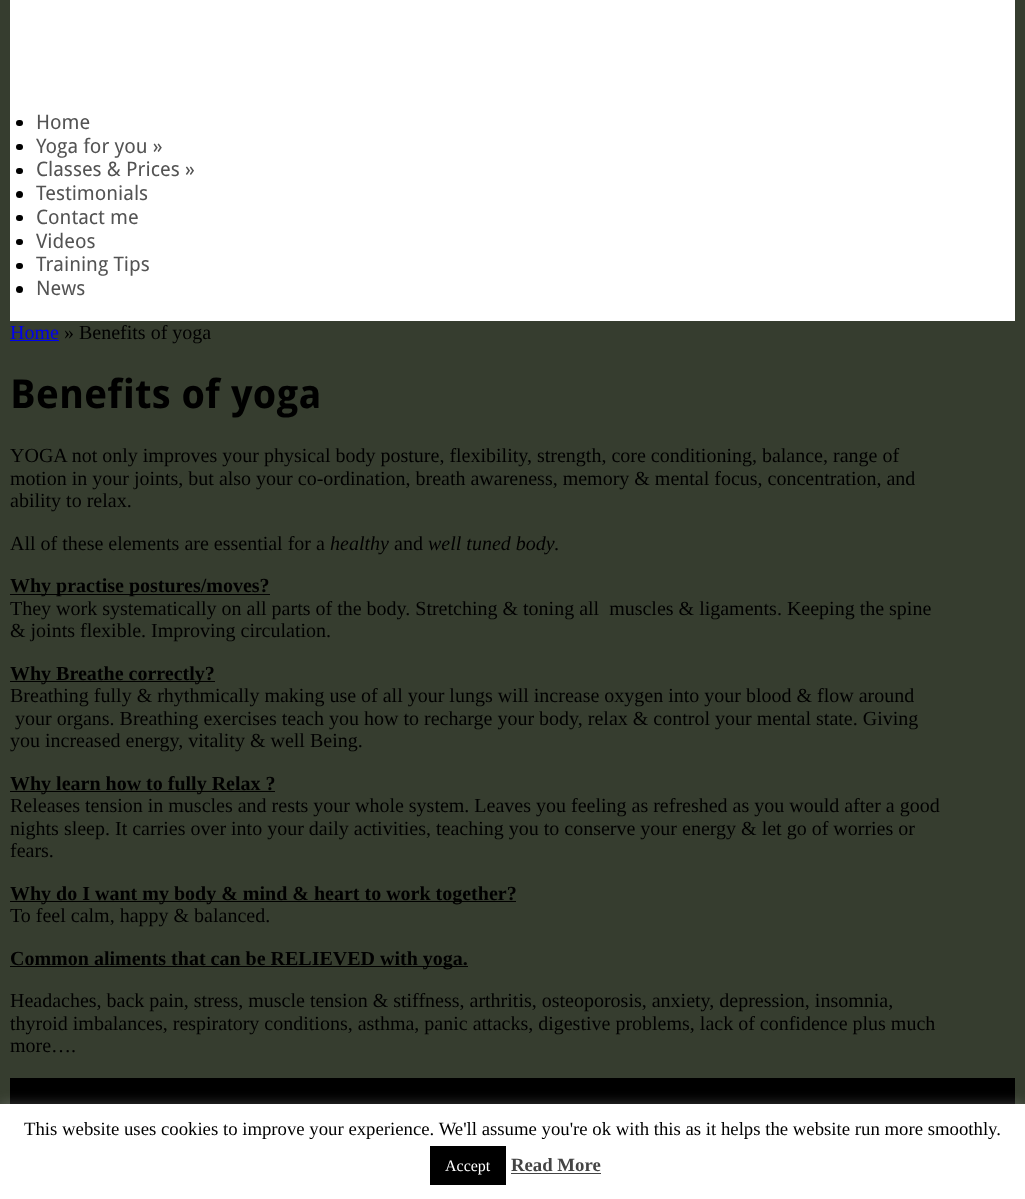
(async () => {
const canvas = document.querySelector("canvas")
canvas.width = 1025
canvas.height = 1199
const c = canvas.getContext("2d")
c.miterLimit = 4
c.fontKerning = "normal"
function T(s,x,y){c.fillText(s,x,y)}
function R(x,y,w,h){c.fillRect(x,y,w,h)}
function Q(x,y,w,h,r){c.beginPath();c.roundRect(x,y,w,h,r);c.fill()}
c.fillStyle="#363d2f"
R(0,0,1025,1199)
c.fillStyle="#fff"
R(10,0,1005,321)
c.fillStyle="#000"
Q(16,120,7,6,3)
c.font="20px Droid Sans"
c.fillStyle="#535353"
T("Home",36,129)
c.fillStyle="#000"
Q(16,144,7,6,3)
c.fillStyle="#535353"
T("Yoga for you »",36,153)
c.fillStyle="#000"
Q(16,168,7,6,3)
c.fillStyle="#535353"
T("Classes & Prices »",36,176)
c.fillStyle="#000"
c.beginPath()
c.arc(19.5,194.5,3.5,0,7)
c.fill()
c.fillStyle="#535353"
T("Testimonials",36,200)
c.fillStyle="#000"
Q(16,215,7,6,3)
c.fillStyle="#535353"
T("Contact me",36,224)
c.fillStyle="#000"
Q(16,239,7,6,3)
c.fillStyle="#535353"
T("Videos",36,248)
c.fillStyle="#000"
Q(16,263,7,6,3)
c.fillStyle="#535353"
T("Training Tips",36,271)
c.fillStyle="#000"
c.beginPath()
c.arc(19.5,289.5,3.5,0,7)
c.fill()
c.fillStyle="#535353"
T("News",36,295)
c.font="20px Liberation Serif"
c.fillStyle="#00e"
T("Home",10,339)
R(10,340,49,1)
c.fillStyle="#000"
T("» Benefits of yoga",64,339)
c.font="bold 40px Droid Sans"
T("Benefits of yoga",10,408)
c.font="20px Liberation Serif"
T("YOGA not only improves your physical body posture, flexibility, strength, core conditioning, balance, range of",10,462)
T("motion in your joints, but also your co-ordination, breath awareness, memory & mental focus, concentration, and",10,485)
T("ability to relax.",10,507)
T("All of these elements are essential for a",10,550)
c.font="italic 20px Liberation Serif"
T("healthy",330,550)
c.font="20px Liberation Serif"
T("and",394,550)
c.font="italic 20px Liberation Serif"
T("well tuned body",428,550)
c.font="20px Liberation Serif"
T(".",554,550)
R(10,594,260,1)
c.font="bold 20px Liberation Serif"
T("Why practise postures/moves?",10,592)
c.font="20px Liberation Serif"
T("They work systematically on all parts of the body. Stretching & toning all  muscles & ligaments. Keeping the spine",10,615)
T("& joints flexible. Improving circulation.",10,637)
R(10,681,205,1)
c.font="bold 20px Liberation Serif"
T("Why Breathe correctly?",10,680)
c.font="20px Liberation Serif"
T("Breathing fully & rhythmically making use of all your lungs will increase oxygen into your blood & flow around",10,702)
T("your organs. Breathing exercises teach you how to recharge your body, relax & control your mental state. Giving",15,725)
T("you increased energy, vitality & well Being.",10,747)
R(10,791,265,1)
c.font="bold 20px Liberation Serif"
T("Why learn how to fully Relax ?",10,790)
c.font="20px Liberation Serif"
T("Releases tension in muscles and rests your whole system. Leaves you feeling as refreshed as you would after a good",10,812)
T("nights sleep. It carries over into your daily activities, teaching you to conserve your energy & let go of worries or",10,835)
T("fears.",10,857)
R(10,901,506,1)
c.font="bold 20px Liberation Serif"
T("Why do I want my body & mind & heart to work together?",10,900)
c.font="20px Liberation Serif"
T("To feel calm, happy & balanced.",10,922)
R(10,966,458,1)
c.font="bold 20px Liberation Serif"
T("Common aliments that can be RELIEVED with yoga.",10,965)
c.font="20px Liberation Serif"
T("Headaches, back pain, stress, muscle tension & stiffness, arthritis, osteoporosis, anxiety, depression, insomnia,",10,1007)
T("thyroid imbalances, respiratory conditions, asthma, panic attacks, digestive problems, lack of confidence plus much",10,1030)
T("more….",10,1052)
R(10,1078,1005,26)
c.fillStyle="#acabab4d"
c.filter="blur(6px)"
c.beginPath()
c.rect(0,1103,1025,96)
c.fill()
c.filter="none"
c.fillStyle="#fff"
R(0,1104,1025,95)
c.font="18.75px Liberation Serif"
c.fillStyle="#000"
T("This website uses cookies to improve your experience. We'll assume you're ok with this as it helps the website run more smoothly.",24,1135)
R(430,1146,76,39)
c.font="16px Liberation Serif"
c.fillStyle="#fff"
T("Accept",445,1171)
c.font="bold 18.75px Liberation Serif"
c.fillStyle="#444"
T("Read More",511,1171)
R(511,1173,90,1)
})()
